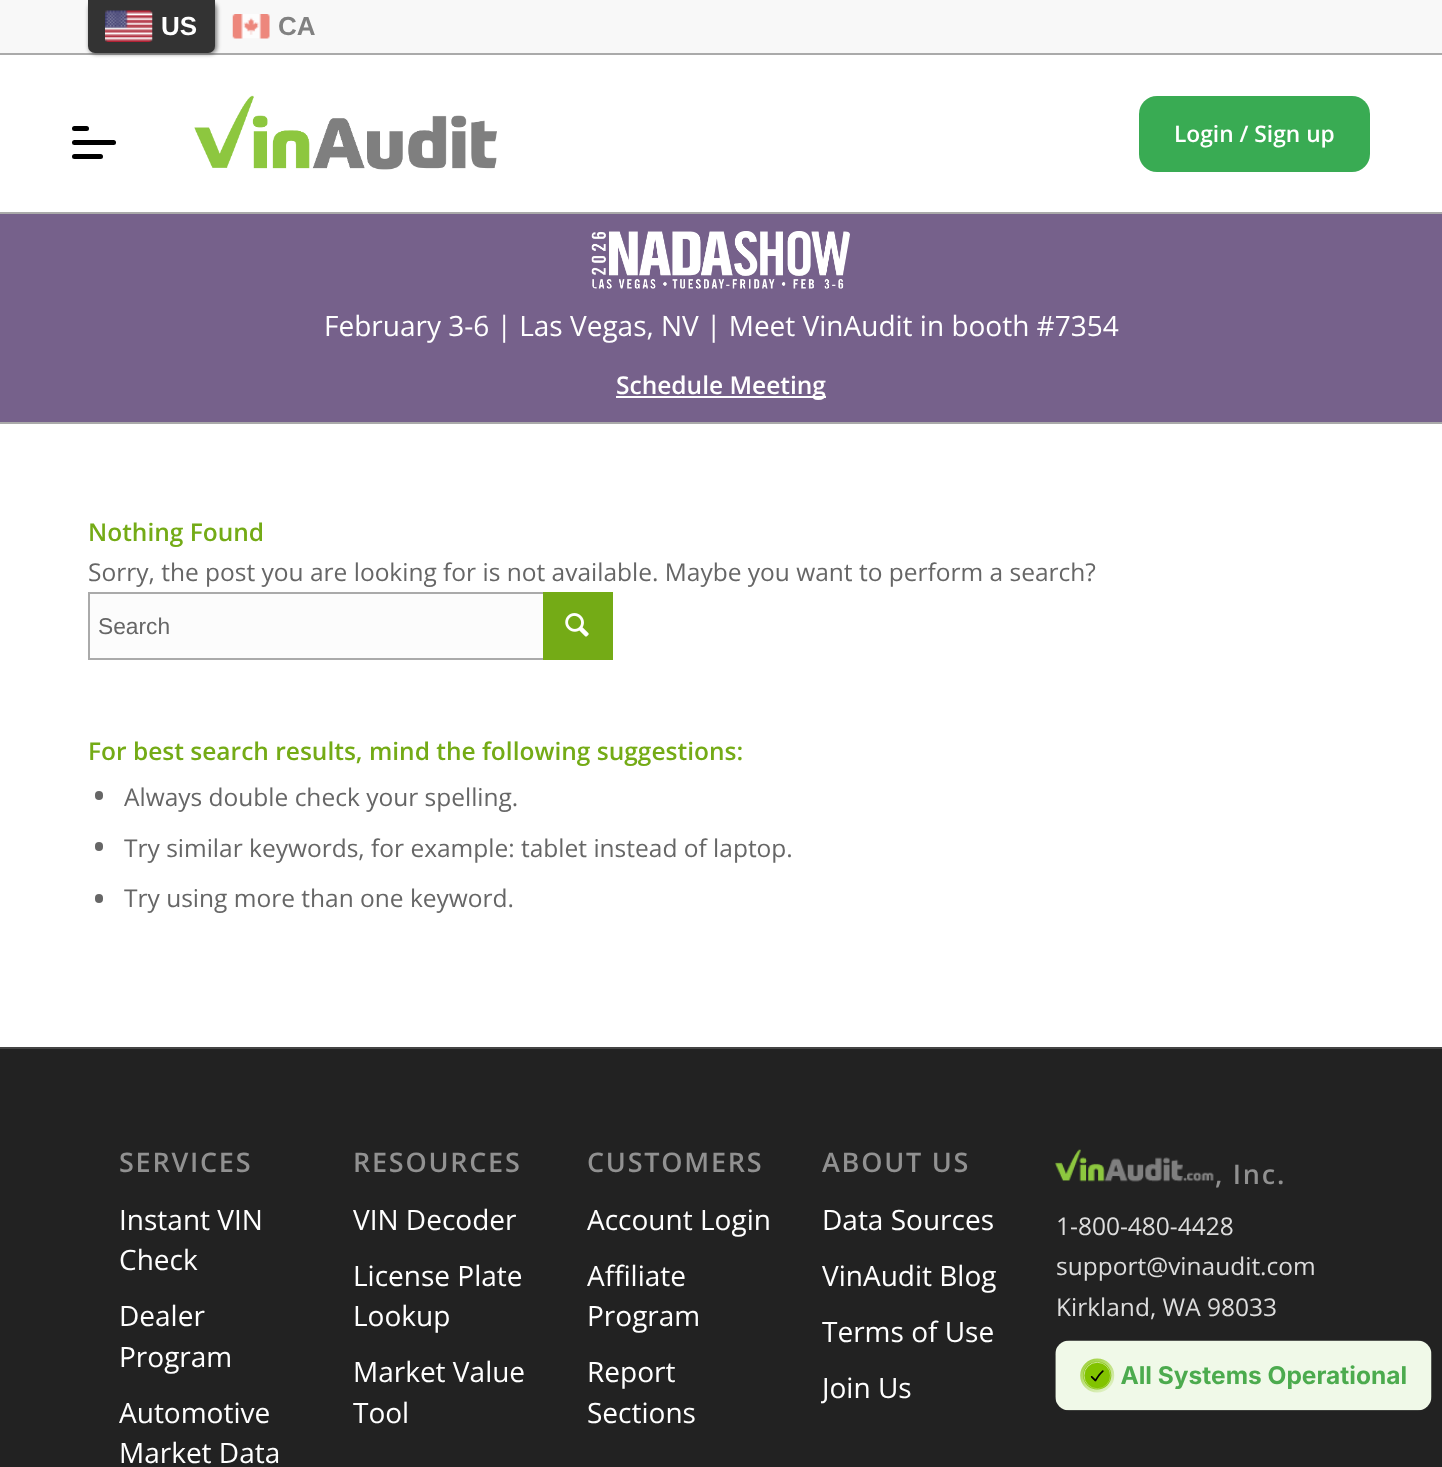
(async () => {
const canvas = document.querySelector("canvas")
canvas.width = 1442
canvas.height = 1467
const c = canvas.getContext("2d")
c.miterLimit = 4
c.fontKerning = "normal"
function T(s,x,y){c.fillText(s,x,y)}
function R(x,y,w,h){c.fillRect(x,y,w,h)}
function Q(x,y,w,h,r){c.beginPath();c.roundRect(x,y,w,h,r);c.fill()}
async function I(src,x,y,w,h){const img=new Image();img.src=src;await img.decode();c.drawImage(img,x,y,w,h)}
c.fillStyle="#fff"
R(0,0,1442,1467)
c.fillStyle="#f8f8f8"
R(0,0,1442,53)
c.fillStyle="#aaa"
R(0,53,1442,2)
c.fillStyle="#00000080"
c.filter="blur(2px)"
c.beginPath()
c.roundRect(89,2,128,52,7)
c.fill()
c.filter="none"
c.fillStyle="#333"
c.beginPath()
c.roundRect(88,0,127,53,[0,0,7,7])
c.fill()
await I("1.png",105,10,48,32)
c.font="bold 26px Liberation Sans"
c.fillStyle="#fff"
T("US",161,35)
await I("2.png",232,14,38,25)
c.fillStyle="#818181"
T("CA",278,35)
c.fillStyle="#aaa"
R(0,212,1442,2)
c.fillStyle="#000"
Q(72,140,44,5,2.5)
Q(72,126,17,5,2.5)
Q(72,154,31,5,2.5)
await I("3.png",194,95,303,75)
c.fillStyle="#76618b"
R(0,214,1442,208)
await I("4.png",591,231,259,58)
c.font="28px Open Sans"
c.fillStyle="#fff"
T("February 3-6 | Las Vegas, NV | Meet VinAudit in booth #7354",324,336)
R(616,396,210,2)
c.font="600 24.5px Open Sans"
T("Schedule Meeting",616,394)
c.fillStyle="#aaa"
R(0,422,1442,2)
c.fillStyle="#74ab16"
T("Nothing Found",88,541)
c.font="24.5px Open Sans"
c.fillStyle="#666"
T("Sorry, the post you are looking for is not available. Maybe you want to perform a search?",88,581)
c.fillStyle="#fcfcfc"
R(90,594,453,64)
c.strokeStyle="#aaa"
c.lineWidth=2
c.strokeRect(89,593,523,66)
c.font="22.75px Liberation Sans"
c.fillStyle="#666"
T("Search",98,634)
c.fillStyle="#74ab16"
R(543,592,70,68)
await I("5.png",565,613,24,24)
c.font="600 24.5px Open Sans"
T("For best search results, mind the following suggestions:",88,760)
c.fillStyle="#666"
Q(95,791,8,9,4)
c.font="24.5px Open Sans"
T("Always double check your spelling.",124,806)
Q(95,842,8,9,4)
T("Try similar keywords, for example: tablet instead of laptop.",124,857)
Q(95,894,8,9,4)
T("Try using more than one keyword.",124,907)
c.fillStyle="#222"
R(0,1049,1442,418)
c.fillStyle="#444"
R(0,1047,1442,2)
c.letterSpacing="1.75px"
c.font="600 27px Open Sans"
c.fillStyle="#919191"
T("SERVICES",119,1172)
c.letterSpacing="0px"
c.font="28px Open Sans"
c.fillStyle="#fff"
T("Instant VIN",119,1230)
T("Check",119,1270)
T("Dealer",119,1326)
T("Program",119,1367)
T("Automotive",119,1423)
T("Market Data",119,1463)
c.letterSpacing="1.75px"
c.font="600 27px Open Sans"
c.fillStyle="#919191"
T("RESOURCES",353,1172)
c.letterSpacing="0px"
c.font="28px Open Sans"
c.fillStyle="#fff"
T("VIN Decoder",353,1230)
T("License Plate",353,1286)
T("Lookup",353,1326)
T("Market Value",353,1382)
T("Tool",353,1423)
c.letterSpacing="1.75px"
c.font="600 27px Open Sans"
c.fillStyle="#919191"
T("CUSTOMERS",587,1172)
c.letterSpacing="0px"
c.font="28px Open Sans"
c.fillStyle="#fff"
T("Account Login",587,1230)
T("Affiliate",587,1286)
T("Program",587,1326)
T("Report",587,1382)
T("Sections",587,1423)
c.letterSpacing="1.75px"
c.font="600 27px Open Sans"
c.fillStyle="#919191"
T("ABOUT US",822,1172)
c.letterSpacing="0px"
c.font="28px Open Sans"
c.fillStyle="#fff"
T("Data Sources",822,1230)
T("VinAudit Blog",822,1286)
T("Terms of Use",822,1342)
c.save()
c.beginPath()
c.rect(821,1127,203,291)
c.clip()
T("Join Us",822,1398)
c.restore()
await I("6.png",1055,1149,159,33)
c.letterSpacing="1.75px"
c.font="600 27px Open Sans"
c.fillStyle="#919191"
T(", Inc.",1215,1184)
c.letterSpacing="0px"
c.font="24.5px Open Sans"
c.fillStyle="#ddd"
T("1-800-480-4428",1056,1235)
T("support@vinaudit.com",1056,1275)
T("Kirkland, WA 98033",1056,1316)
await I("7.png",1055,1340,377,71)
c.fillStyle="#39ab53"
Q(1139,96,231,76,18)
c.font="600 22.75px Open Sans"
c.fillStyle="#fff"
T("Login / Sign up",1174,142)
})()
